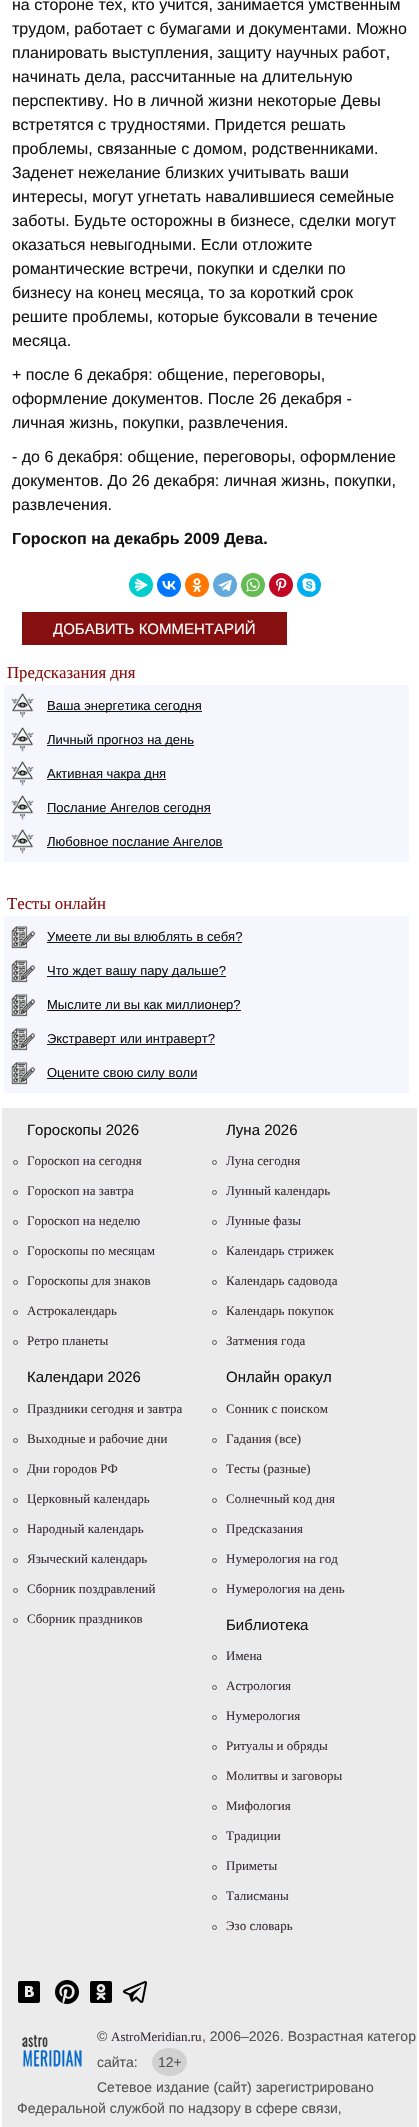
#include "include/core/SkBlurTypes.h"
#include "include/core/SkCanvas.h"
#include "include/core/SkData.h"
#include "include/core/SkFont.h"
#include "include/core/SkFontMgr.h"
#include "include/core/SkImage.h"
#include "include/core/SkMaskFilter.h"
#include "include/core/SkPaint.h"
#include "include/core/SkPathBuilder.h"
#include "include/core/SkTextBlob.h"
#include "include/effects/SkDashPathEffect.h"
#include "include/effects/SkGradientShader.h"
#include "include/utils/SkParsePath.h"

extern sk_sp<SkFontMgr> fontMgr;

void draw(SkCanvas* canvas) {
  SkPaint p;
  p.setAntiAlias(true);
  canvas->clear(SK_ColorWHITE);
  p.setColor(SkColorSetRGB(3, 206, 206));
  canvas->drawCircle(141, 585, 12, p);
  canvas->drawImageRect(SkImages::DeferredFromEncodedData(SkData::MakeFromFileName("images/1.png")), SkRect::MakeLTRB(134, 578, 148, 592), SkSamplingOptions());
  p.setColor(SkColorSetRGB(0, 119, 255));
  canvas->drawCircle(169, 585, 12, p);
  canvas->drawImageRect(SkImages::DeferredFromEncodedData(SkData::MakeFromFileName("images/2.png")), SkRect::MakeLTRB(162, 581, 176, 590), SkSamplingOptions());
  p.setColor(SkColorSetRGB(255, 119, 0));
  canvas->drawCircle(197, 585, 12, p);
  canvas->drawImageRect(SkImages::DeferredFromEncodedData(SkData::MakeFromFileName("images/3.png")), SkRect::MakeLTRB(192, 578, 202, 592), SkSamplingOptions());
  p.setColor(SkColorSetRGB(100, 169, 220));
  canvas->drawCircle(225, 585, 12, p);
  canvas->drawImageRect(SkImages::DeferredFromEncodedData(SkData::MakeFromFileName("images/4.png")), SkRect::MakeLTRB(218, 580, 232, 592), SkSamplingOptions());
  p.setColor(SkColorSetRGB(101, 188, 84));
  canvas->drawCircle(253, 585, 12, p);
  canvas->drawImageRect(SkImages::DeferredFromEncodedData(SkData::MakeFromFileName("images/5.png")), SkRect::MakeLTRB(246, 578, 260, 592), SkSamplingOptions());
  p.setColor(SkColorSetRGB(194, 7, 36));
  canvas->drawCircle(281, 585, 12, p);
  canvas->drawImageRect(SkImages::DeferredFromEncodedData(SkData::MakeFromFileName("images/6.png")), SkRect::MakeLTRB(276, 578, 287, 592), SkSamplingOptions());
  p.setColor(SkColorSetRGB(0, 175, 240));
  canvas->drawCircle(309, 585, 12, p);
  canvas->drawImageRect(SkImages::DeferredFromEncodedData(SkData::MakeFromFileName("images/7.png")), SkRect::MakeLTRB(302, 578, 316, 592), SkSamplingOptions());
  p.setColor(SkColorSetRGB(134, 15, 15));
  canvas->drawRect(SkRect::MakeLTRB(22, 612, 287, 645), p);
  p.setColor(SkColorSetRGB(245, 246, 255));
  canvas->drawRect(SkRect::MakeLTRB(4, 685, 409, 862), p);
  canvas->drawImageRect(SkImages::DeferredFromEncodedData(SkData::MakeFromFileName("images/8.png")), SkRect::MakeLTRB(11, 693, 34, 718), SkSamplingOptions());
  p.setColor(SkColorSetRGB(21, 21, 21));
  canvas->drawRect(SkRect::MakeLTRB(47, 711, 202, 712), p);
  canvas->drawImageRect(SkImages::DeferredFromEncodedData(SkData::MakeFromFileName("images/8.png")), SkRect::MakeLTRB(11, 727, 34, 752), SkSamplingOptions());
  canvas->drawRect(SkRect::MakeLTRB(47, 745, 194, 746), p);
  canvas->drawImageRect(SkImages::DeferredFromEncodedData(SkData::MakeFromFileName("images/8.png")), SkRect::MakeLTRB(11, 761, 34, 786), SkSamplingOptions());
  canvas->drawRect(SkRect::MakeLTRB(47, 779, 166, 780), p);
  canvas->drawImageRect(SkImages::DeferredFromEncodedData(SkData::MakeFromFileName("images/9.png")), SkRect::MakeLTRB(11, 795, 34, 820), SkSamplingOptions());
  canvas->drawRect(SkRect::MakeLTRB(47, 813, 211, 814), p);
  canvas->drawImageRect(SkImages::DeferredFromEncodedData(SkData::MakeFromFileName("images/8.png")), SkRect::MakeLTRB(11, 829, 34, 854), SkSamplingOptions());
  canvas->drawRect(SkRect::MakeLTRB(47, 847, 223, 848), p);
  p.setColor(SkColorSetRGB(245, 246, 255));
  canvas->drawRect(SkRect::MakeLTRB(4, 916, 409, 1093), p);
  canvas->drawImageRect(SkImages::DeferredFromEncodedData(SkData::MakeFromFileName("images/10.png")), SkRect::MakeLTRB(11, 926, 35, 949), SkSamplingOptions());
  p.setColor(SkColorSetRGB(21, 21, 21));
  canvas->drawRect(SkRect::MakeLTRB(47, 942, 242, 943), p);
  canvas->drawImageRect(SkImages::DeferredFromEncodedData(SkData::MakeFromFileName("images/10.png")), SkRect::MakeLTRB(11, 960, 35, 983), SkSamplingOptions());
  canvas->drawRect(SkRect::MakeLTRB(47, 976, 226, 977), p);
  canvas->drawImageRect(SkImages::DeferredFromEncodedData(SkData::MakeFromFileName("images/10.png")), SkRect::MakeLTRB(11, 994, 35, 1017), SkSamplingOptions());
  canvas->drawRect(SkRect::MakeLTRB(47, 1010, 241, 1011), p);
  canvas->drawImageRect(SkImages::DeferredFromEncodedData(SkData::MakeFromFileName("images/10.png")), SkRect::MakeLTRB(11, 1028, 35, 1051), SkSamplingOptions());
  canvas->drawRect(SkRect::MakeLTRB(47, 1044, 215, 1045), p);
  canvas->drawImageRect(SkImages::DeferredFromEncodedData(SkData::MakeFromFileName("images/10.png")), SkRect::MakeLTRB(11, 1062, 35, 1085), SkSamplingOptions());
  canvas->drawRect(SkRect::MakeLTRB(47, 1078, 197, 1079), p);
  p.setColor(SkColorSetRGB(235, 235, 235));
  canvas->drawRect(SkRect::MakeLTRB(2, 1108, 417, 2127), p);
  p.setStyle(SkPaint::kStroke_Style);
  p.setStrokeWidth(1);
  p.setColor(SkColorSetRGB(84, 84, 84));
  canvas->drawCircle(15.5f, 1162.5f, 2, p);
  canvas->drawCircle(15.5f, 1192.5f, 2, p);
  canvas->drawCircle(15.5f, 1222.5f, 2, p);
  canvas->drawCircle(15.5f, 1252.5f, 2, p);
  canvas->drawCircle(15.5f, 1282.5f, 2, p);
  canvas->drawCircle(15.5f, 1312.5f, 2, p);
  canvas->drawCircle(15.5f, 1342.5f, 2, p);
  canvas->drawCircle(214.5f, 1162.5f, 2, p);
  canvas->drawCircle(214.5f, 1192.5f, 2, p);
  canvas->drawCircle(214.5f, 1222.5f, 2, p);
  canvas->drawCircle(214.5f, 1252.5f, 2, p);
  canvas->drawCircle(214.5f, 1282.5f, 2, p);
  canvas->drawCircle(214.5f, 1312.5f, 2, p);
  canvas->drawCircle(214.5f, 1342.5f, 2, p);
  canvas->drawCircle(15.5f, 1410.5f, 2, p);
  canvas->drawCircle(15.5f, 1440.5f, 2, p);
  canvas->drawCircle(15.5f, 1470.5f, 2, p);
  canvas->drawCircle(15.5f, 1500.5f, 2, p);
  canvas->drawCircle(15.5f, 1530.5f, 2, p);
  canvas->drawCircle(15.5f, 1560.5f, 2, p);
  canvas->drawCircle(15.5f, 1590.5f, 2, p);
  canvas->drawCircle(15.5f, 1620.5f, 2, p);
  canvas->drawCircle(214.5f, 1410.5f, 2, p);
  canvas->drawCircle(214.5f, 1440.5f, 2, p);
  canvas->drawCircle(214.5f, 1470.5f, 2, p);
  canvas->drawCircle(214.5f, 1500.5f, 2, p);
  canvas->drawCircle(214.5f, 1530.5f, 2, p);
  canvas->drawCircle(214.5f, 1560.5f, 2, p);
  canvas->drawCircle(214.5f, 1590.5f, 2, p);
  canvas->drawCircle(214.5f, 1657.5f, 2, p);
  canvas->drawCircle(214.5f, 1687.5f, 2, p);
  canvas->drawCircle(214.5f, 1717.5f, 2, p);
  canvas->drawCircle(214.5f, 1747.5f, 2, p);
  canvas->drawCircle(214.5f, 1777.5f, 2, p);
  canvas->drawCircle(214.5f, 1807.5f, 2, p);
  canvas->drawCircle(214.5f, 1837.5f, 2, p);
  canvas->drawCircle(214.5f, 1867.5f, 2, p);
  canvas->drawCircle(214.5f, 1897.5f, 2, p);
  canvas->drawCircle(214.5f, 1927.5f, 2, p);
  canvas->drawImageRect(SkImages::DeferredFromEncodedData(SkData::MakeFromFileName("images/11.png")), SkRect::MakeLTRB(18, 1981, 40, 2003), SkSamplingOptions());
  canvas->drawImageRect(SkImages::DeferredFromEncodedData(SkData::MakeFromFileName("images/12.png")), SkRect::MakeLTRB(55, 1980, 79, 2004), SkSamplingOptions());
  canvas->drawImageRect(SkImages::DeferredFromEncodedData(SkData::MakeFromFileName("images/13.png")), SkRect::MakeLTRB(90, 1981, 112, 2003), SkSamplingOptions());
  canvas->drawImageRect(SkImages::DeferredFromEncodedData(SkData::MakeFromFileName("images/14.png")), SkRect::MakeLTRB(123, 1981, 147, 2003), SkSamplingOptions());
  canvas->drawImageRect(SkImages::DeferredFromEncodedData(SkData::MakeFromFileName("images/15.png")), SkRect::MakeLTRB(22, 2035, 82, 2075), SkSamplingOptions());
  p.setStyle(SkPaint::kFill_Style);
  p.setColor(SkColorSetRGB(209, 209, 209));
  canvas->drawOval(SkRect::MakeLTRB(152, 2048, 187, 2076), p);
  SkFont font1(fontMgr->matchFamilyStyle("Liberation Sans", SkFontStyle::Normal()), 16);
  font1.setSubpixel(true);
  p.setColor(SkColorSetRGB(21, 21, 21));
  canvas->drawString("на стороне тех, кто учится, занимается умственным", 12, 10, font1, p);
  canvas->drawString("трудом, работает с бумагами и документами. Можно", 12, 34, font1, p);
  canvas->drawString("планировать выступления, защиту научных работ,", 12, 58, font1, p);
  canvas->drawString("начинать дела, рассчитанные на длительную", 12, 82, font1, p);
  canvas->drawString("перспективу. Но в личной жизни некоторые Девы", 12, 106, font1, p);
  canvas->drawString("встретятся с трудностями. Придется решать", 12, 130, font1, p);
  canvas->drawString("проблемы, связанные с домом, родственниками.", 12, 154, font1, p);
  canvas->drawString("Заденет нежелание близких учитывать ваши", 12, 178, font1, p);
  canvas->drawString("интересы, могут угнетать навалившиеся семейные", 12, 202, font1, p);
  canvas->drawString("заботы. Будьте осторожны в бизнесе, сделки могут", 12, 226, font1, p);
  canvas->drawString("оказаться невыгодными. Если отложите", 12, 250, font1, p);
  canvas->drawString("романтические встречи, покупки и сделки по", 12, 274, font1, p);
  canvas->drawString("бизнесу на конец месяца, то за короткий срок", 12, 298, font1, p);
  canvas->drawString("решите проблемы, которые буксовали в течение", 12, 322, font1, p);
  canvas->drawString("месяца.", 12, 346, font1, p);
  canvas->drawString("+ после 6 декабря: общение, переговоры,", 12, 380, font1, p);
  canvas->drawString("оформление документов. После 26 декабря -", 12, 404, font1, p);
  canvas->drawString("личная жизнь, покупки, развлечения.", 12, 428, font1, p);
  canvas->drawString("- до 6 декабря: общение, переговоры, оформление", 12, 462, font1, p);
  canvas->drawString("документов. До 26 декабря: личная жизнь, покупки,", 12, 486, font1, p);
  canvas->drawString("развлечения.", 12, 510, font1, p);
  SkFont font2(fontMgr->matchFamilyStyle("Liberation Sans", SkFontStyle::Bold()), 16);
  font2.setSubpixel(true);
  canvas->drawString("Гороскоп на декабрь 2009 Дева.", 12, 544, font2, p);
  SkFont font3(fontMgr->matchFamilyStyle("Liberation Sans", SkFontStyle::Normal()), 15);
  font3.setSubpixel(true);
  p.setColor(SK_ColorWHITE);
  canvas->drawString("ДОБАВИТЬ КОММЕНТАРИЙ", 53, 634, font3, p);
  SkFont font4(fontMgr->matchFamilyStyle("Liberation Serif", SkFontStyle::Normal()), 16.75f);
  font4.setSubpixel(true);
  p.setColor(SkColorSetRGB(134, 15, 15));
  canvas->drawString("Предсказания дня", 7, 678, font4, p);
  SkFont font5(fontMgr->matchFamilyStyle("Liberation Sans", SkFontStyle::Normal()), 13);
  font5.setSubpixel(true);
  p.setColor(SkColorSetRGB(21, 21, 21));
  canvas->drawString("Ваша энергетика сегодня", 47, 710, font5, p);
  canvas->drawString("Личный прогноз на день", 47, 744, font5, p);
  canvas->drawString("Активная чакра дня", 47, 778, font5, p);
  canvas->drawString("Послание Ангелов сегодня", 47, 812, font5, p);
  canvas->drawString("Любовное послание Ангелов", 47, 846, font5, p);
  p.setColor(SkColorSetRGB(134, 15, 15));
  canvas->drawString("Тесты онлайн", 7, 909, font4, p);
  p.setColor(SkColorSetRGB(21, 21, 21));
  canvas->drawString("Умеете ли вы влюблять в себя?", 47, 941, font5, p);
  canvas->drawString("Что ждет вашу пару дальше?", 47, 975, font5, p);
  canvas->drawString("Мыслите ли вы как миллионер?", 47, 1009, font5, p);
  canvas->drawString("Экстраверт или интраверт?", 47, 1043, font5, p);
  canvas->drawString("Оцените свою силу воли", 47, 1077, font5, p);
  canvas->drawString("Гороскопы 2026", 27, 1135, font3, p);
  SkFont font6(fontMgr->matchFamilyStyle("Liberation Serif", SkFontStyle::Normal()), 13);
  font6.setSubpixel(true);
  p.setColor(SkColorSetRGB(60, 48, 57));
  canvas->drawString("Гороскоп на сегодня", 27, 1165, font6, p);
  canvas->drawString("Гороскоп на завтра", 27, 1195, font6, p);
  canvas->drawString("Гороскоп на неделю", 27, 1225, font6, p);
  canvas->drawString("Гороскопы по месяцам", 27, 1255, font6, p);
  canvas->drawString("Гороскопы для знаков", 27, 1285, font6, p);
  canvas->drawString("Астрокалендарь", 27, 1315, font6, p);
  canvas->drawString("Ретро планеты", 27, 1345, font6, p);
  p.setColor(SkColorSetRGB(21, 21, 21));
  canvas->drawString("Луна 2026", 226, 1135, font3, p);
  p.setColor(SkColorSetRGB(60, 48, 57));
  canvas->drawString("Луна сегодня", 226, 1165, font6, p);
  canvas->drawString("Лунный календарь", 226, 1195, font6, p);
  canvas->drawString("Лунные фазы", 226, 1225, font6, p);
  canvas->drawString("Календарь стрижек", 226, 1255, font6, p);
  canvas->drawString("Календарь садовода", 226, 1285, font6, p);
  canvas->drawString("Календарь покупок", 226, 1315, font6, p);
  canvas->drawString("Затмения года", 226, 1345, font6, p);
  p.setColor(SkColorSetRGB(21, 21, 21));
  canvas->drawString("Календари 2026", 27, 1382, font3, p);
  p.setColor(SkColorSetRGB(60, 48, 57));
  canvas->drawString("Праздники сегодня и завтра", 27, 1413, font6, p);
  canvas->drawString("Выходные и рабочие дни", 27, 1443, font6, p);
  canvas->drawString("Дни городов РФ", 27, 1473, font6, p);
  canvas->drawString("Церковный календарь", 27, 1503, font6, p);
  canvas->drawString("Народный календарь", 27, 1533, font6, p);
  canvas->drawString("Языческий календарь", 27, 1563, font6, p);
  canvas->drawString("Сборник поздравлений", 27, 1593, font6, p);
  canvas->drawString("Сборник праздников", 27, 1623, font6, p);
  p.setColor(SkColorSetRGB(21, 21, 21));
  canvas->drawString("Онлайн оракул", 226, 1382, font3, p);
  p.setColor(SkColorSetRGB(60, 48, 57));
  canvas->drawString("Cонник с поиском", 226, 1413, font6, p);
  canvas->drawString("Гадания (все)", 226, 1443, font6, p);
  canvas->drawString("Тесты (разные)", 226, 1473, font6, p);
  canvas->drawString("Солнечный код дня", 226, 1503, font6, p);
  canvas->drawString("Предсказания", 226, 1533, font6, p);
  canvas->drawString("Нумерология на год", 226, 1563, font6, p);
  canvas->drawString("Нумерология на день", 226, 1593, font6, p);
  p.setColor(SkColorSetRGB(21, 21, 21));
  canvas->drawString("Библиотека", 226, 1630, font3, p);
  p.setColor(SkColorSetRGB(60, 48, 57));
  canvas->drawString("Имена", 226, 1660, font6, p);
  canvas->drawString("Астрология", 226, 1690, font6, p);
  canvas->drawString("Нумерология", 226, 1720, font6, p);
  canvas->drawString("Ритуалы и обряды", 226, 1750, font6, p);
  canvas->drawString("Молитвы и заговоры", 226, 1780, font6, p);
  canvas->drawString("Мифология", 226, 1810, font6, p);
  canvas->drawString("Традиции", 226, 1840, font6, p);
  canvas->drawString("Приметы", 226, 1870, font6, p);
  canvas->drawString("Талисманы", 226, 1900, font6, p);
  canvas->drawString("Эзо словарь", 226, 1930, font6, p);
  SkFont font7(fontMgr->matchFamilyStyle("Liberation Sans", SkFontStyle::Normal()), 14);
  font7.setSubpixel(true);
  p.setColor(SkColorSetRGB(84, 84, 84));
  canvas->drawString("©", 97, 2041, font7, p);
  p.setColor(SkColorSetRGB(60, 48, 57));
  canvas->drawString("AstroMeridian.ru", 111, 2041, font6, p);
  p.setColor(SkColorSetRGB(84, 84, 84));
  canvas->drawString(", 2006–2026. Возрастная категор", 202, 2041, font7, p);
  canvas->drawString("сайта:", 97, 2067, font7, p);
  canvas->drawString("12+", 158, 2067, font7, p);
  canvas->drawString("Сетевое издание (сайт) зарегистрировано", 97, 2092, font7, p);
  canvas->drawString("Федеральной службой по надзору в сфере связи,", 17, 2113, font7, p);
}
